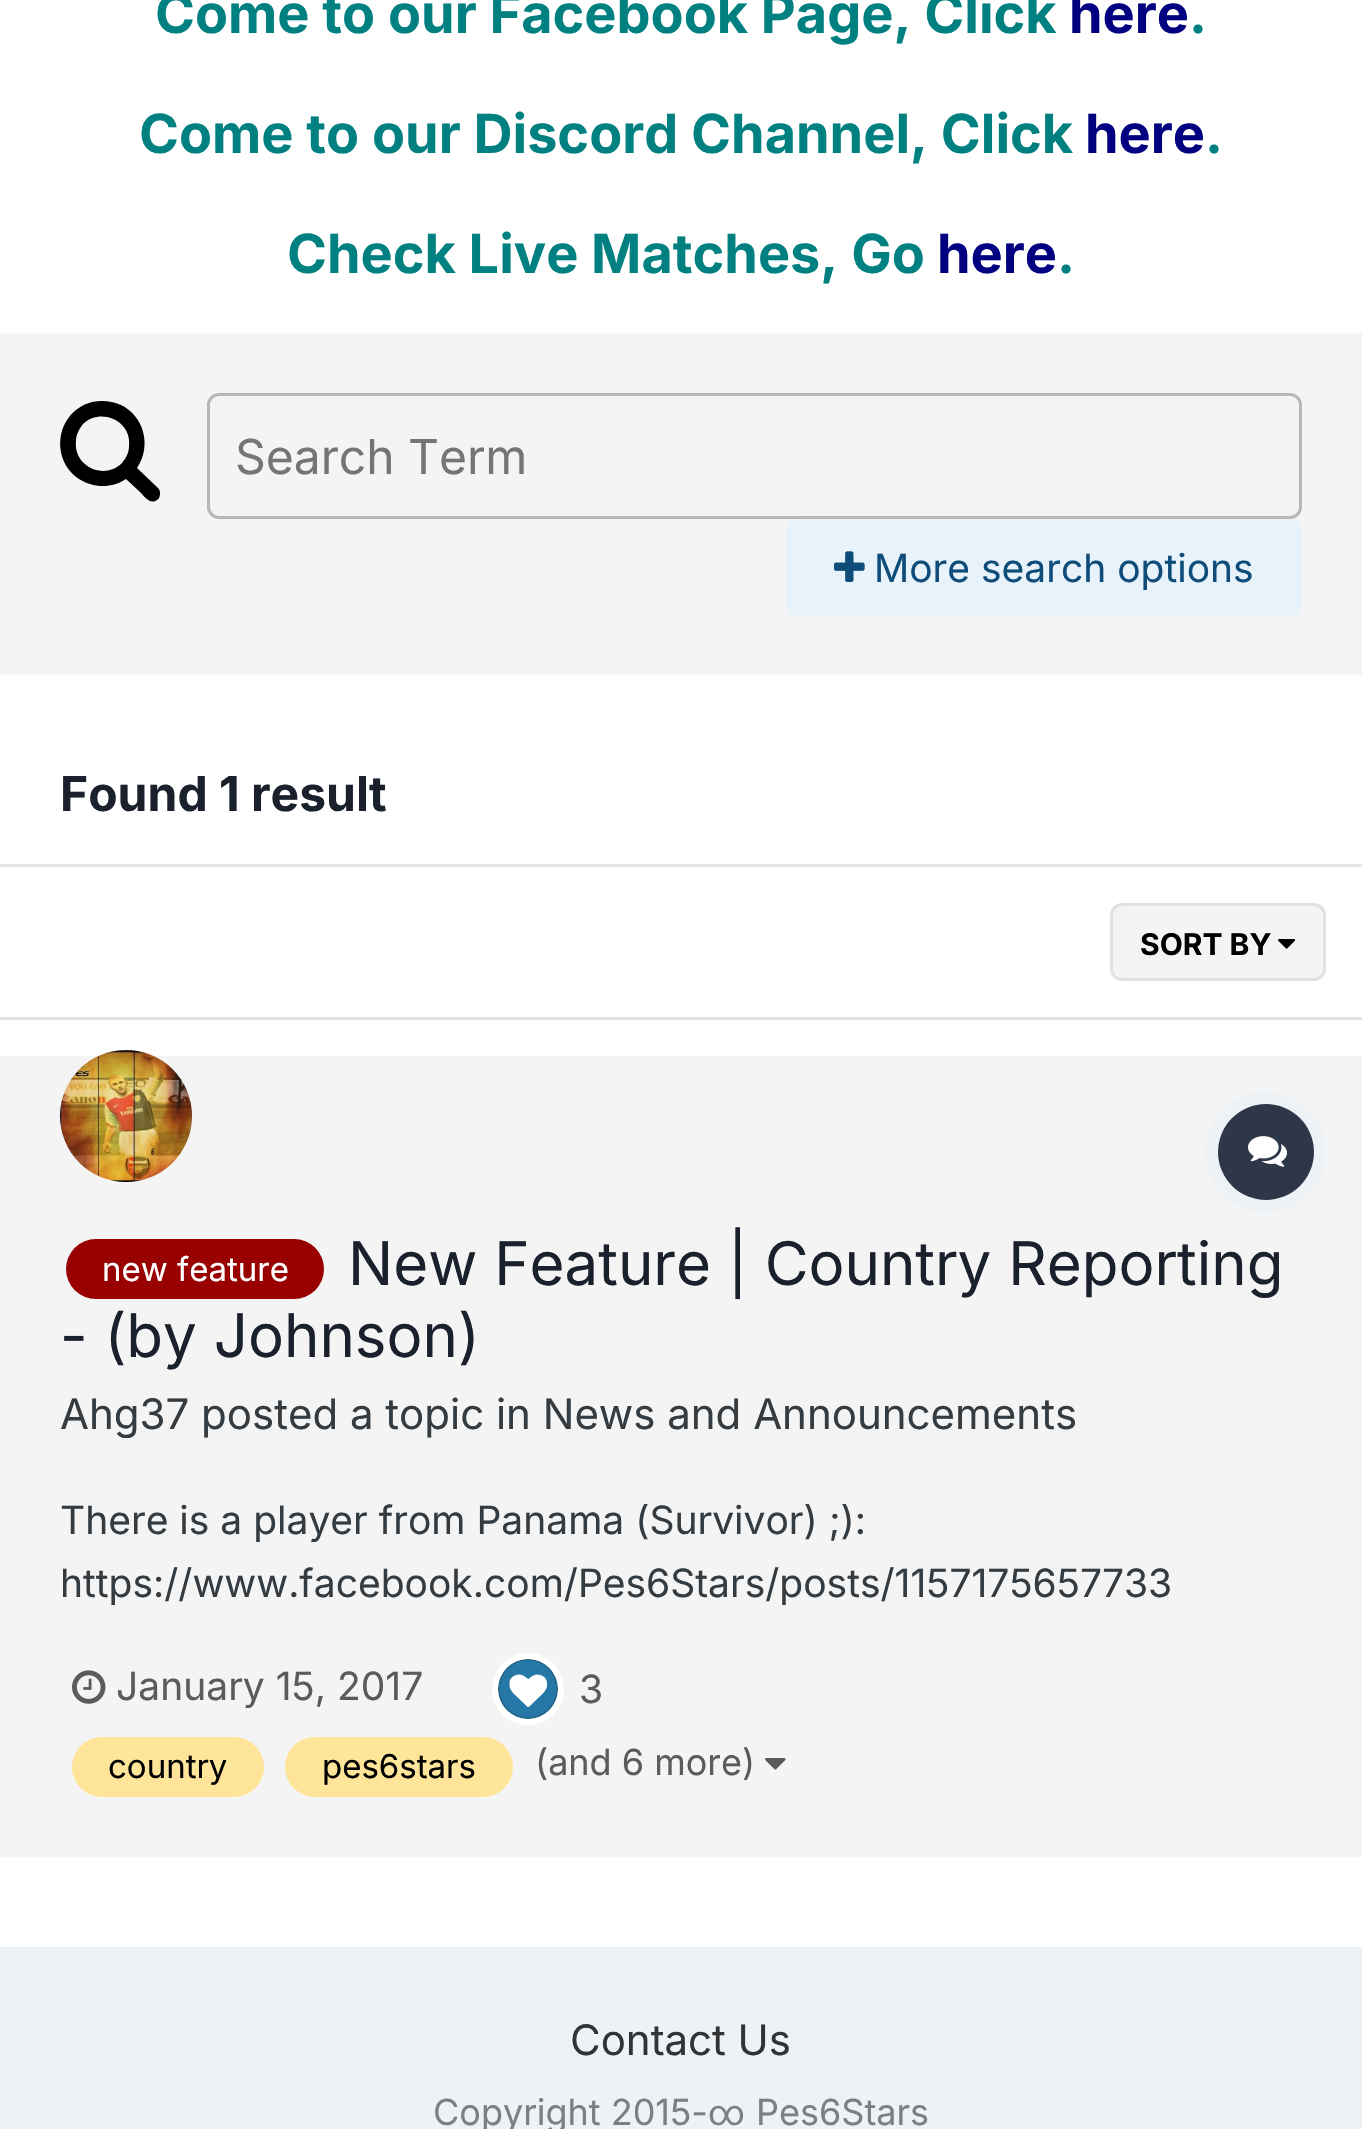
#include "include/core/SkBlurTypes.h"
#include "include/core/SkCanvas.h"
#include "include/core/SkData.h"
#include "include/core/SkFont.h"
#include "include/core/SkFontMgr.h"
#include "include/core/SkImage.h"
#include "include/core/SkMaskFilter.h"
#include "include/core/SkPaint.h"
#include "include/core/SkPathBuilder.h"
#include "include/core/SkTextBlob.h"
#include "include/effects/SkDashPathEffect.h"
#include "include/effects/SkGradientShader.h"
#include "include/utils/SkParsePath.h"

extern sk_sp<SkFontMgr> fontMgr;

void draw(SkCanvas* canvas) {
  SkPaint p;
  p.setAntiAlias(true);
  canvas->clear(SkColorSetRGB(237, 242, 247));
  p.setColor(SK_ColorWHITE);
  canvas->drawRect(SkRect::MakeLTRB(0, 0, 1362, 1947), p);
  p.setColor(SkColorSetRGB(244, 244, 244));
  canvas->drawRect(SkRect::MakeLTRB(0, 333, 1362, 675), p);
  p.setColor(SK_ColorBLACK);
  canvas->drawPath(SkPathBuilder().moveTo(122, 463).cubicTo(126, 458, 129, 453, 129, 446).cubicTo(132, 421, 101, 407, 83, 424).cubicTo(79, 429, 76, 435, 76, 441).cubicTo(73, 466, 104, 481, 122, 463).close().moveTo(160, 494).cubicTo(160, 496, 159, 499, 157, 500).cubicTo(150, 505, 144, 496, 140, 492).lineTo(126, 479).cubicTo(116, 486, 102, 488, 90, 484).cubicTo(49, 471, 51, 413, 92, 402).cubicTo(102, 400, 112, 401, 121, 405).cubicTo(144, 416, 152, 446, 137, 468).lineTo(158, 488).cubicTo(160, 490, 160, 492, 160, 494).close().detach(), p);
  p.setStyle(SkPaint::kStroke_Style);
  p.setStrokeWidth(3);
  p.setColor(SkColorSetRGB(183, 183, 183));
  canvas->drawRoundRect(SkRect::MakeLTRB(208.5f, 394.5f, 1300.5f, 517.5f), 10.5f, 10.5f, p);
  p.setStyle(SkPaint::kFill_Style);
  p.setColor(SkColorSetRGB(232, 242, 250));
  canvas->drawRoundRect(SkRect::MakeLTRB(786, 519, 1302, 615), 12, 12, p);
  canvas->drawImageRect(SkImages::DeferredFromEncodedData(SkData::MakeFromFileName("images/1.png")), SkRect::MakeLTRB(834, 551, 865, 582), SkSamplingOptions());
  p.setColor(SkColorSetRGB(230, 230, 230));
  canvas->drawRect(SkRect::MakeLTRB(0, 864, 1362, 867), p);
  p.setColor(SkColorSetRGB(225, 226, 227));
  canvas->drawRect(SkRect::MakeLTRB(0, 1017, 1362, 1020), p);
  p.setColor(SkColorSetRGB(244, 244, 244));
  canvas->drawRoundRect(SkRect::MakeLTRB(1110, 903, 1326, 981), 12, 12, p);
  canvas->drawImageRect(SkImages::DeferredFromEncodedData(SkData::MakeFromFileName("images/2.png")), SkRect::MakeLTRB(1278, 939, 1296, 949), SkSamplingOptions());
  p.setStyle(SkPaint::kStroke_Style);
  p.setColor(SkColorSetARGB(26, 53, 60, 65));
  canvas->drawRoundRect(SkRect::MakeLTRB(1111.5f, 904.5f, 1324.5f, 979.5f), 10.5f, 10.5f, p);
  p.setStyle(SkPaint::kFill_Style);
  p.setColor(SkColorSetRGB(244, 244, 244));
  canvas->drawRect(SkRect::MakeLTRB(0, 1056, 1362, 1857), p);
  canvas->drawCircle(126, 1116, 66, p);
  canvas->drawImageRect(SkImages::DeferredFromEncodedData(SkData::MakeFromFileName("images/3.png")), SkRect::MakeLTRB(60, 1050, 192, 1182), SkSamplingOptions());
  p.setStyle(SkPaint::kStroke_Style);
  p.setStrokeWidth(12);
  p.setColor(SkColorSetRGB(237, 242, 247));
  canvas->drawCircle(1266, 1152, 54, p);
  p.setStyle(SkPaint::kFill_Style);
  p.setColor(SkColorSetRGB(45, 55, 72));
  canvas->drawCircle(1266, 1152, 48, p);
  canvas->drawImageRect(SkImages::DeferredFromEncodedData(SkData::MakeFromFileName("images/4.png")), SkRect::MakeLTRB(1248, 1136, 1287, 1167), SkSamplingOptions());
  p.setColor(SkColorSetRGB(153, 0, 0));
  canvas->drawRoundRect(SkRect::MakeLTRB(66, 1239, 324, 1299), 30, 30, p);
  canvas->drawImageRect(SkImages::DeferredFromEncodedData(SkData::MakeFromFileName("images/5.png")), SkRect::MakeLTRB(72, 1670, 106, 1704), SkSamplingOptions());
  p.setStyle(SkPaint::kStroke_Style);
  p.setStrokeWidth(6);
  p.setColor(SK_ColorWHITE);
  canvas->drawCircle(528, 1689, 33, p);
  canvas->drawImageRect(SkImages::DeferredFromEncodedData(SkData::MakeFromFileName("images/6.png")), SkRect::MakeLTRB(498, 1659, 558, 1719), SkSamplingOptions());
  p.setStyle(SkPaint::kFill_Style);
  p.setColor(SkColorSetRGB(255, 229, 153));
  canvas->drawRoundRect(SkRect::MakeLTRB(72, 1737, 264, 1797), 30, 30, p);
  canvas->drawRoundRect(SkRect::MakeLTRB(285, 1737, 513, 1797), 30, 30, p);
  canvas->drawImageRect(SkImages::DeferredFromEncodedData(SkData::MakeFromFileName("images/7.png")), SkRect::MakeLTRB(765, 1758, 786, 1770), SkSamplingOptions());
  SkFont font1(fontMgr->matchFamilyStyle("Inter", SkFontStyle::Bold()), 54);
  font1.setSubpixel(true);
  p.setColor(SkColorSetRGB(0, 128, 128));
  canvas->drawString("Come to our Facebook Page, Click", 155, 33, font1, p);
  p.setColor(SkColorSetRGB(0, 0, 128));
  canvas->drawString("here", 1069, 33, font1, p);
  p.setColor(SkColorSetRGB(0, 128, 128));
  canvas->drawString(".", 1189, 33, font1, p);
  canvas->drawString("Come to our Discord Channel, Click", 139, 153, font1, p);
  p.setColor(SkColorSetRGB(0, 0, 128));
  canvas->drawString("here", 1085, 153, font1, p);
  p.setColor(SkColorSetRGB(0, 128, 128));
  canvas->drawString(".", 1205, 153, font1, p);
  canvas->drawString("Check Live Matches, Go", 287, 273, font1, p);
  p.setColor(SkColorSetRGB(0, 0, 128));
  canvas->drawString("here", 937, 273, font1, p);
  p.setColor(SkColorSetRGB(0, 128, 128));
  canvas->drawString(".", 1057, 273, font1, p);
  SkFont font2(fontMgr->matchFamilyStyle("Inter", SkFontStyle::Normal()), 48);
  font2.setSubpixel(true);
  p.setColor(SkColorSetRGB(117, 117, 117));
  canvas->drawString("Search Term", 235, 474, font2, p);
  SkFont font3(fontMgr->matchFamilyStyle("Inter", SkFontStyle::Normal()), 39);
  font3.setSubpixel(true);
  p.setColor(SkColorSetRGB(14, 76, 121));
  canvas->drawString("More search options", 874, 582, font3, p);
  SkFont font4(fontMgr->matchFamilyStyle("Inter", SkFontStyle::Bold()), 48);
  font4.setSubpixel(true);
  p.setColor(SkColorSetRGB(26, 32, 44));
  canvas->drawString("Found 1 result", 60, 811, font4, p);
  SkFont font5(fontMgr->matchFamilyStyle("Inter", SkFontStyle::Bold()), 30);
  font5.setSubpixel(true);
  p.setColor(SK_ColorBLACK);
  canvas->drawString("SORT BY", 1140, 955, font5, p);
  SkFont font6(fontMgr->matchFamilyStyle("Inter", SkFontStyle::Normal()), 33);
  font6.setSubpixel(true);
  p.setColor(SK_ColorWHITE);
  canvas->drawString("new feature", 102, 1281, font6, p);
  SkFont font7(fontMgr->matchFamilyStyle("Inter", SkFontStyle::Normal()), 60);
  font7.setSubpixel(true);
  p.setColor(SkColorSetRGB(26, 32, 44));
  canvas->drawString("New Feature | Country Reporting", 348, 1285, font7, p);
  canvas->drawString("- (by Johnson)", 60, 1357, font7, p);
  SkFont font8(fontMgr->matchFamilyStyle("Inter", SkFontStyle::Normal()), 42);
  font8.setSubpixel(true);
  p.setColor(SkColorSetRGB(53, 60, 65));
  canvas->drawString("Ahg37 posted a topic in News and Announcements", 60, 1429, font8, p);
  canvas->drawString("There is a player from Panama (Survivor) ;):", 60, 1534, font3, p);
  canvas->drawString("https://www.facebook.com/Pes6Stars/posts/1157175657733", 60, 1597, font3, p);
  p.setColor(SkColorSetRGB(91, 91, 91));
  canvas->drawString("January 15, 2017", 116, 1700, font3, p);
  canvas->drawString("3", 579, 1703, font3, p);
  p.setColor(SK_ColorBLACK);
  canvas->drawString("country", 108, 1778, font6, p);
  canvas->drawString("pes6stars", 322, 1778, font6, p);
  SkFont font9(fontMgr->matchFamilyStyle("Inter", SkFontStyle::Normal()), 36);
  font9.setSubpixel(true);
  p.setColor(SkColorSetRGB(91, 91, 91));
  canvas->drawString("(and 6 more)", 535, 1775, font9, p);
  p.setColor(SkColorSetRGB(51, 51, 51));
  canvas->drawString("Contact Us", 570, 2055, font8, p);
  p.setColor(SkColorSetRGB(125, 127, 129));
  canvas->drawString("Copyright 2015-", 433, 2125, font9, p);
  SkFont font10(fontMgr->matchFamilyStyle("Roboto", SkFontStyle::Normal()), 36);
  font10.setSubpixel(true);
  canvas->drawString("∞", 708, 2125, font10, p);
  canvas->drawString("Pes6Stars", 756, 2125, font9, p);
}
